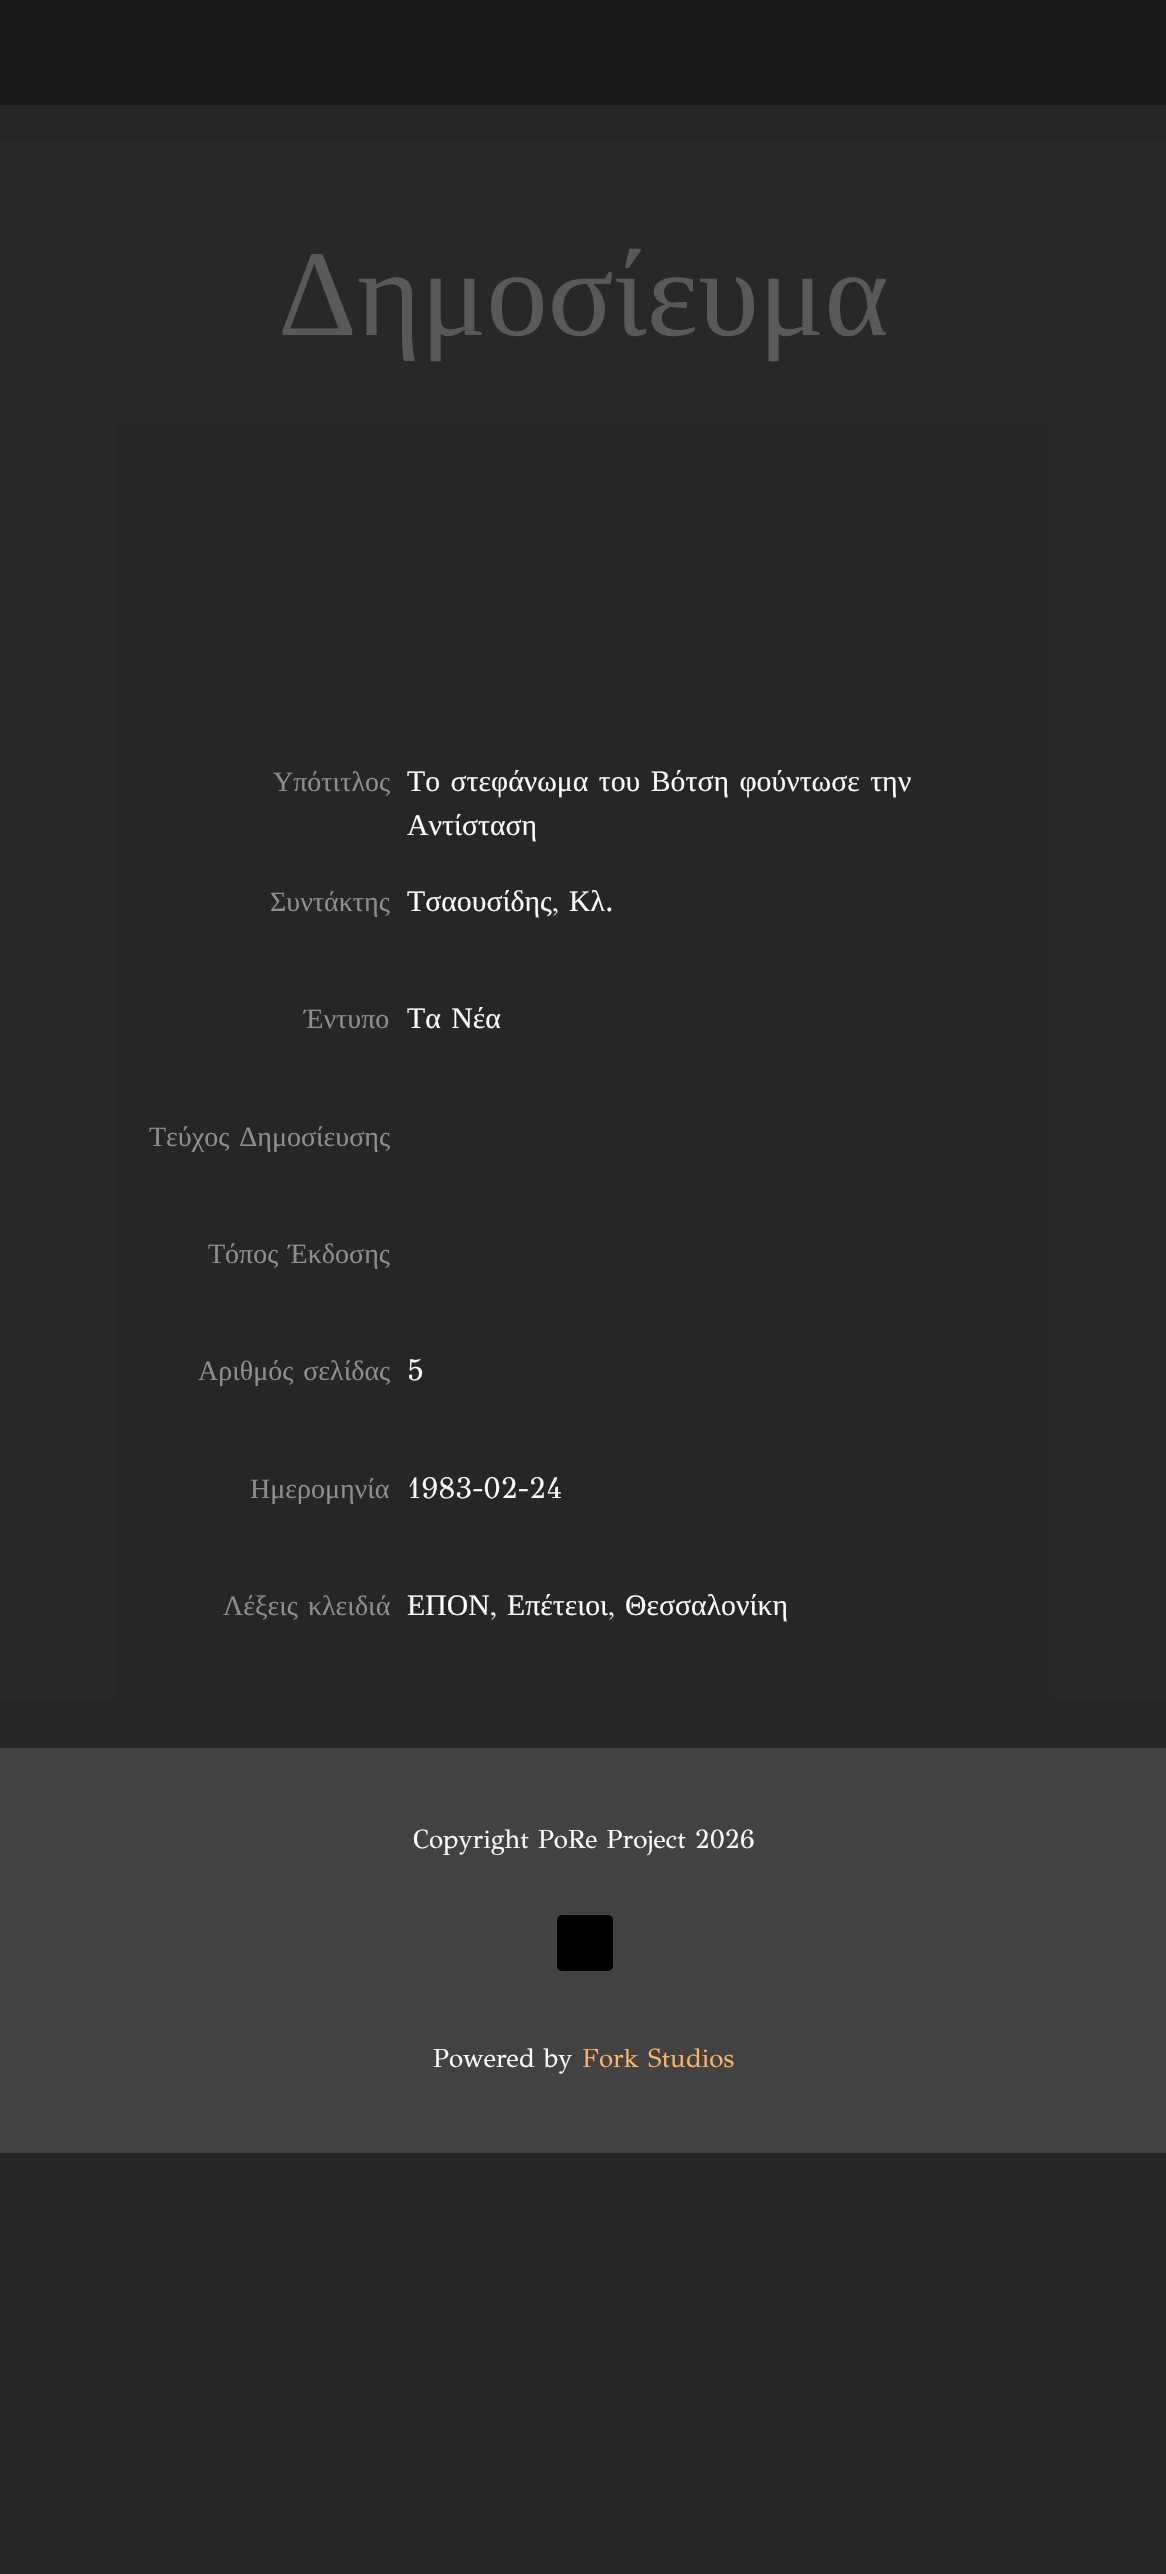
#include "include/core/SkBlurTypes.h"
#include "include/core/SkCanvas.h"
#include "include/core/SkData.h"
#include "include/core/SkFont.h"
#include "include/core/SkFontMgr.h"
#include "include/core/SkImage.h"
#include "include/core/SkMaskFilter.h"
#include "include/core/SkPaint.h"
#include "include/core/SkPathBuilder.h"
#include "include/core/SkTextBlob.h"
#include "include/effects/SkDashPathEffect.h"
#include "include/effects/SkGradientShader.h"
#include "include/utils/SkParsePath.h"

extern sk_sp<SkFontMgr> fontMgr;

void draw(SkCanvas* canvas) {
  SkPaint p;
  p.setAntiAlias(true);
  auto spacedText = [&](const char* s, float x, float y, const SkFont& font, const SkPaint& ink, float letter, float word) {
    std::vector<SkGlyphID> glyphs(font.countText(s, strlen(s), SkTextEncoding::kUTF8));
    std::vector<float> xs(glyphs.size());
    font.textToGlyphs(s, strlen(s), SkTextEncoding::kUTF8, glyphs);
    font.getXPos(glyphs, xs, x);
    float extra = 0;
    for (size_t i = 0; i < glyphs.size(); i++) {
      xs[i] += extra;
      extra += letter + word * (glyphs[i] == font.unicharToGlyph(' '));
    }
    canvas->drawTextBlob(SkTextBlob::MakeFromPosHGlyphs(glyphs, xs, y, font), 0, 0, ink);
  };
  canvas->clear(SkColorSetRGB(40, 38, 36));
  p.setColor(SkColorSetRGB(26, 25, 24));
  canvas->drawRect(SkRect::MakeLTRB(0, 0, 1166, 105), p);
  p.setColor(SkColorSetRGB(40, 40, 39));
  canvas->drawRect(SkRect::MakeLTRB(0, 140, 1166, 1701), p);
  p.setColor(SkColorSetRGB(40, 38, 36));
  canvas->drawRect(SkRect::MakeLTRB(117, 425, 1050, 1701), p);
  p.setColor(SkColorSetRGB(66, 66, 66));
  canvas->drawRect(SkRect::MakeLTRB(0, 1748, 1166, 2153), p);
  p.setColor(SK_ColorBLACK);
  canvas->drawRoundRect(SkRect::MakeLTRB(557, 1915, 613, 1971), 5, 5, p);
  SkFont font1(fontMgr->matchFamilyStyle("Liberation Serif", SkFontStyle::Normal()), 122.5f);
  font1.setSubpixel(true);
  p.setColor(SkColorSetRGB(89, 89, 89));
  canvas->drawString("Δημοσίευμα", 278, 335, font1, p);
  SkFont font2(fontMgr->matchFamilyStyle("Liberation Serif", SkFontStyle::Normal()), 28);
  font2.setSubpixel(true);
  p.setColor(SkColorSetRGB(142, 142, 142));
  canvas->drawString("Υπότιτλος", 273, 791, font2, p);
  SkFont font3(fontMgr->matchFamilyStyle("Liberation Serif", SkFontStyle::Normal()), 29.75f);
  font3.setSubpixel(true);
  p.setColor(SkColorSetRGB(252, 252, 252));
  spacedText("Το στεφάνωμα του Βότση φούντωσε την", 407, 791, font3, p, 0, 3);
  canvas->drawString("Αντίσταση", 407, 835, font3, p);
  p.setColor(SkColorSetRGB(142, 142, 142));
  canvas->drawString("Συντάκτης", 270, 911, font2, p);
  p.setColor(SkColorSetRGB(252, 252, 252));
  canvas->drawString("Τσαουσίδης", 407, 911, font3, p);
  SkFont font4(fontMgr->matchFamilyStyle("GFS Didot", SkFontStyle::Normal()), 29.75f);
  font4.setSubpixel(true);
  canvas->drawString(",", 552, 911, font4, p);
  canvas->drawString("Κλ", 569, 911, font3, p);
  canvas->drawString(".", 605, 911, font4, p);
  p.setColor(SkColorSetRGB(142, 142, 142));
  canvas->drawString("Έντυπο", 304, 1028, font2, p);
  p.setColor(SkColorSetRGB(252, 252, 252));
  spacedText("Τα Νέα", 407, 1028, font3, p, 0, 3);
  p.setColor(SkColorSetRGB(142, 142, 142));
  spacedText("Τεύχος Δημοσίευσης", 149, 1146, font2, p, 0, 3);
  spacedText("Τόπος Έκδοσης", 208, 1263, font2, p, 0, 3);
  spacedText("Αριθμός σελίδας", 198, 1380, font2, p, 0, 3);
  p.setColor(SkColorSetRGB(252, 252, 252));
  canvas->drawString("5", 407, 1380, font4, p);
  p.setColor(SkColorSetRGB(142, 142, 142));
  canvas->drawString("Ημερομηνία", 250, 1498, font2, p);
  p.setColor(SkColorSetRGB(252, 252, 252));
  canvas->drawString("1983-02-24", 407, 1498, font4, p);
  p.setColor(SkColorSetRGB(142, 142, 142));
  spacedText("Λέξεις κλειδιά", 223, 1615, font2, p, 0, 3);
  p.setColor(SkColorSetRGB(252, 252, 252));
  canvas->drawString("ΕΠΟΝ", 407, 1615, font3, p);
  canvas->drawString(",", 490, 1615, font4, p);
  canvas->drawString("Επέτειοι", 507, 1615, font3, p);
  canvas->drawString(",", 608, 1615, font4, p);
  canvas->drawString("Θεσσαλονίκη", 625, 1615, font3, p);
  SkFont font5(fontMgr->matchFamilyStyle("GFS Didot", SkFontStyle::Normal()), 26.25f);
  font5.setSubpixel(true);
  canvas->drawString("Copyright PoRe Project 2026", 413, 1848, font5, p);
  canvas->drawString("Powered by", 433, 2067, font5, p);
  p.setColor(SkColorSetRGB(253, 180, 103));
  canvas->drawString("Fork Studios", 582, 2067, font5, p);
}
